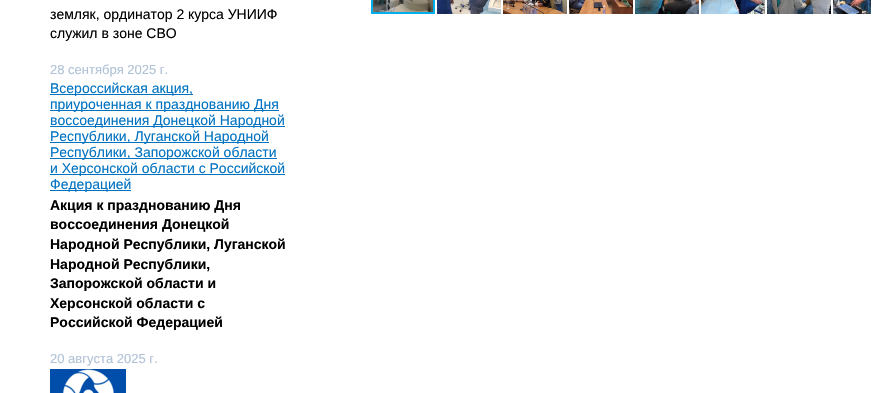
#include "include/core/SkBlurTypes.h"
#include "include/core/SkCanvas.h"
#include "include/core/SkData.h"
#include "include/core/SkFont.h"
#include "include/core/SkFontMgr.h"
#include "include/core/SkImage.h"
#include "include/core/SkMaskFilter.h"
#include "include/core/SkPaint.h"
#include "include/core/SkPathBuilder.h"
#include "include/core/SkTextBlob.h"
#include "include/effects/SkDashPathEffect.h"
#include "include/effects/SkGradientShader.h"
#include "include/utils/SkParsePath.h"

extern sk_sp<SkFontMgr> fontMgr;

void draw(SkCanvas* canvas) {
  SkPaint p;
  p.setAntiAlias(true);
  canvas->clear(SK_ColorWHITE);
  canvas->drawImageRect(SkImages::DeferredFromEncodedData(SkData::MakeFromFileName("images/1.png")), SkRect::MakeLTRB(373, 0, 433, 12), SkSamplingOptions());
  p.setStyle(SkPaint::kStroke_Style);
  p.setStrokeWidth(2);
  p.setColor(SkColorSetRGB(0, 175, 234));
  canvas->drawRect(SkRect::MakeLTRB(372, -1, 434, 13), p);
  canvas->drawImageRect(SkImages::DeferredFromEncodedData(SkData::MakeFromFileName("images/2.png")), SkRect::MakeLTRB(437, 0, 501, 14), SkSamplingOptions());
  canvas->drawImageRect(SkImages::DeferredFromEncodedData(SkData::MakeFromFileName("images/3.png")), SkRect::MakeLTRB(503, 0, 567, 14), SkSamplingOptions());
  canvas->drawImageRect(SkImages::DeferredFromEncodedData(SkData::MakeFromFileName("images/4.png")), SkRect::MakeLTRB(569, 0, 633, 14), SkSamplingOptions());
  canvas->drawImageRect(SkImages::DeferredFromEncodedData(SkData::MakeFromFileName("images/5.png")), SkRect::MakeLTRB(635, 0, 699, 14), SkSamplingOptions());
  canvas->drawImageRect(SkImages::DeferredFromEncodedData(SkData::MakeFromFileName("images/6.png")), SkRect::MakeLTRB(701, 0, 765, 14), SkSamplingOptions());
  canvas->drawImageRect(SkImages::DeferredFromEncodedData(SkData::MakeFromFileName("images/7.png")), SkRect::MakeLTRB(767, 0, 831, 14), SkSamplingOptions());
  canvas->drawImageRect(SkImages::DeferredFromEncodedData(SkData::MakeFromFileName("images/8.png")), SkRect::MakeLTRB(833, 0, 871, 14), SkSamplingOptions());
  p.setStyle(SkPaint::kFill_Style);
  {
    const SkColor colors[] = {SkColorSetARGB(102, 0, 0, 0), SkColorSetARGB(0, 0, 0, 0)};
    const float stops[] = {0, 1};
    SkMatrix m = SkMatrix::Translate(871, -18).preScale(5, 34);
    p.setShader(SkGradientShader::MakeRadial({0, 0}, 1, colors, stops, 2, SkTileMode::kClamp, 0, &m));
    p.setAlpha(255);
  }
  canvas->drawRect(SkRect::MakeLTRB(867, 0, 871, 16), p);
  {
    const SkColor colors[] = {SkColorSetARGB(0, 0, 0, 0), SkColorSetARGB(51, 0, 0, 0), SkColorSetARGB(77, 0, 0, 0), SkColorSetARGB(0, 0, 0, 0)};
    const float stops[] = {0, 0.25f, 0.75f, 1};
    const SkPoint ends[] = {{871, -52}, {871, 16}};
    p.setShader(SkGradientShader::MakeLinear(ends, colors, stops, 4, SkTileMode::kClamp));
    p.setAlpha(255);
  }
  canvas->drawRect(SkRect::MakeLTRB(870, 0, 871, 16), p);
  p.setShader(nullptr);
  p.setColor(SkColorSetRGB(0, 114, 193));
  canvas->drawRect(SkRect::MakeLTRB(50, 94, 193, 95), p);
  canvas->drawRect(SkRect::MakeLTRB(50, 110, 279, 111), p);
  canvas->drawRect(SkRect::MakeLTRB(50, 126, 285, 127), p);
  canvas->drawRect(SkRect::MakeLTRB(50, 142, 269, 143), p);
  canvas->drawRect(SkRect::MakeLTRB(50, 158, 277, 159), p);
  canvas->drawRect(SkRect::MakeLTRB(50, 174, 285, 175), p);
  canvas->drawRect(SkRect::MakeLTRB(50, 190, 131, 191), p);
  canvas->drawImageRect(SkImages::DeferredFromEncodedData(SkData::MakeFromFileName("images/9.png")), SkRect::MakeLTRB(50, 369, 126, 393), SkSamplingOptions());
  SkFont font1(fontMgr->matchFamilyStyle("Liberation Sans", SkFontStyle::Normal()), 14);
  font1.setSubpixel(true);
  p.setColor(SK_ColorBLACK);
  canvas->drawString("земляк, ординатор 2 курса УНИИФ", 50, 19, font1, p);
  canvas->drawString("служил в зоне СВО", 50, 38, font1, p);
  SkFont font2(fontMgr->matchFamilyStyle("Liberation Sans", SkFontStyle::Normal()), 13);
  font2.setSubpixel(true);
  p.setColor(SkColorSetRGB(176, 194, 214));
  canvas->drawString("28 сентября 2025 г.", 50, 74, font2, p);
  p.setColor(SkColorSetRGB(0, 114, 193));
  canvas->drawString("Всероссийская акция,", 50, 93, font1, p);
  canvas->drawString("приуроченная к празднованию Дня", 50, 109, font1, p);
  canvas->drawString("воссоединения Донецкой Народной", 50, 125, font1, p);
  canvas->drawString("Республики, Луганской Народной", 50, 141, font1, p);
  canvas->drawString("Республики, Запорожской области", 50, 157, font1, p);
  canvas->drawString("и Херсонской области с Российской", 50, 173, font1, p);
  canvas->drawString("Федерацией", 50, 189, font1, p);
  SkFont font3(fontMgr->matchFamilyStyle("Liberation Sans", SkFontStyle::Bold()), 14);
  font3.setSubpixel(true);
  p.setColor(SK_ColorBLACK);
  canvas->drawString("Акция к празднованию Дня", 50, 210, font3, p);
  canvas->drawString("воссоединения Донецкой", 50, 229, font3, p);
  canvas->drawString("Народной Республики, Луганской", 50, 249, font3, p);
  canvas->drawString("Народной Республики,", 50, 269, font3, p);
  canvas->drawString("Запорожской области и", 50, 288, font3, p);
  canvas->drawString("Херсонской области с", 50, 308, font3, p);
  canvas->drawString("Российской Федерацией", 50, 327, font3, p);
  p.setColor(SkColorSetRGB(176, 194, 214));
  canvas->drawString("20 августа 2025 г.", 50, 363, font2, p);
}
